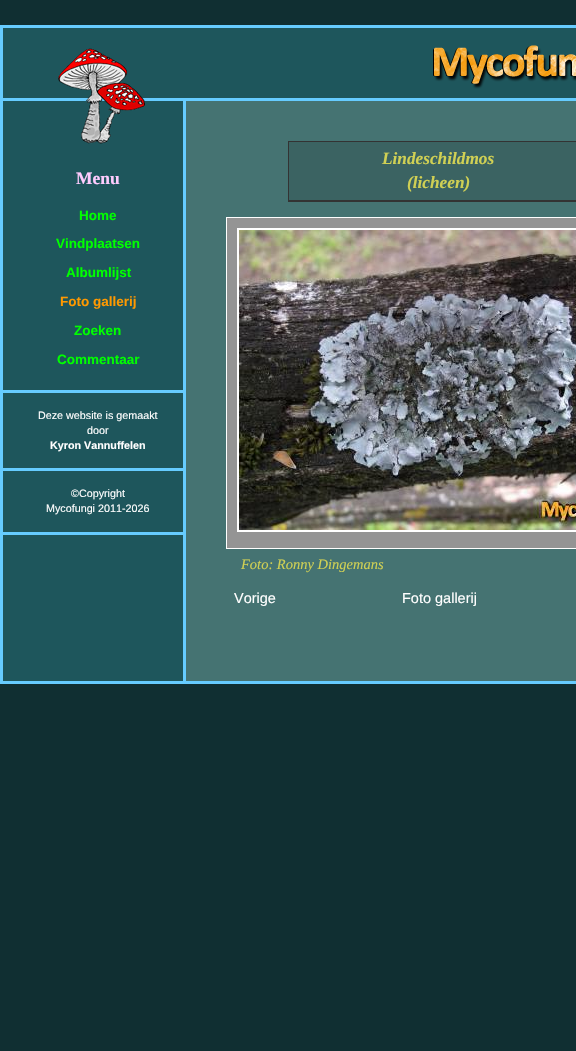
#include "include/core/SkBlurTypes.h"
#include "include/core/SkCanvas.h"
#include "include/core/SkData.h"
#include "include/core/SkFont.h"
#include "include/core/SkFontMgr.h"
#include "include/core/SkImage.h"
#include "include/core/SkMaskFilter.h"
#include "include/core/SkPaint.h"
#include "include/core/SkPathBuilder.h"
#include "include/core/SkTextBlob.h"
#include "include/effects/SkDashPathEffect.h"
#include "include/effects/SkGradientShader.h"
#include "include/utils/SkParsePath.h"

extern sk_sp<SkFontMgr> fontMgr;

void draw(SkCanvas* canvas) {
  SkPaint p;
  p.setAntiAlias(true);
  canvas->clear(SkColorSetRGB(16, 47, 50));
  p.setColor(SkColorSetRGB(30, 86, 92));
  canvas->drawRect(SkRect::MakeLTRB(1.5f, 26.5f, 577.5f, 682.5f), p);
  p.setStyle(SkPaint::kStroke_Style);
  p.setStrokeWidth(3);
  p.setColor(SkColorSetRGB(102, 204, 255));
  canvas->drawRect(SkRect::MakeLTRB(1.5f, 26.5f, 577.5f, 682.5f), p);
  p.setStyle(SkPaint::kFill_Style);
  canvas->drawRect(SkRect::MakeLTRB(3, 98, 576, 101), p);
  canvas->drawImageRect(SkImages::DeferredFromEncodedData(SkData::MakeFromFileName("images/1.png")), SkRect::MakeLTRB(58, 48, 145, 144), SkSamplingOptions());
  canvas->drawImageRect(SkImages::DeferredFromEncodedData(SkData::MakeFromFileName("images/2.png")), SkRect::MakeLTRB(433, 45, 576, 89), SkSamplingOptions());
  canvas->drawRect(SkRect::MakeLTRB(3, 390, 183, 393), p);
  canvas->drawRect(SkRect::MakeLTRB(3, 468, 183, 471), p);
  canvas->drawRect(SkRect::MakeLTRB(3, 532, 183, 535), p);
  p.setColor(SkColorSetRGB(69, 115, 114));
  canvas->drawRect(SkRect::MakeLTRB(186, 101, 576, 681), p);
  p.setColor(SkColorSetRGB(102, 204, 255));
  canvas->drawRect(SkRect::MakeLTRB(183, 101, 186, 681), p);
  p.setColor(SkColorSetRGB(59, 99, 98));
  canvas->drawRect(SkRect::MakeLTRB(289, 142, 576, 200), p);
  p.setColor(SkColorSetRGB(51, 51, 51));
  canvas->drawRect(SkRect::MakeLTRB(288, 141, 576, 142), p);
  canvas->drawRect(SkRect::MakeLTRB(288, 200, 576, 202), p);
  canvas->drawRect(SkRect::MakeLTRB(288, 141, 289, 202), p);
  p.setColor(SkColorSetRGB(148, 148, 148));
  canvas->drawRect(SkRect::MakeLTRB(226.5f, 217.5f, 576.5f, 548.5f), p);
  p.setStyle(SkPaint::kStroke_Style);
  p.setStrokeWidth(1);
  p.setColor(SK_ColorWHITE);
  canvas->drawRect(SkRect::MakeLTRB(226.5f, 217.5f, 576.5f, 548.5f), p);
  p.setStrokeWidth(2);
  canvas->drawRect(SkRect::MakeLTRB(238, 229, 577, 531), p);
  canvas->drawImageRect(SkImages::DeferredFromEncodedData(SkData::MakeFromFileName("images/3.png")), SkRect::MakeLTRB(239, 230, 576, 530), SkSamplingOptions());
  SkFont font1(fontMgr->matchFamilyStyle("Liberation Serif", SkFontStyle::Bold()), 17.5f);
  font1.setSubpixel(true);
  p.setStyle(SkPaint::kFill_Style);
  p.setColor(SkColorSetRGB(255, 204, 255));
  canvas->drawString("Menu", 76, 184, font1, p);
  SkFont font2(fontMgr->matchFamilyStyle("Liberation Sans", SkFontStyle::Bold()), 13.5f);
  font2.setSubpixel(true);
  p.setColor(SkColorSetRGB(0, 255, 0));
  canvas->drawString("Home", 79, 220, font2, p);
  canvas->drawString("Vindplaatsen", 56, 248, font2, p);
  canvas->drawString("Albumlijst", 66, 277, font2, p);
  p.setColor(SkColorSetRGB(255, 153, 0));
  canvas->drawString("Foto gallerij", 60, 306, font2, p);
  p.setColor(SkColorSetRGB(0, 255, 0));
  canvas->drawString("Zoeken", 74, 335, font2, p);
  canvas->drawString("Commentaar", 57, 364, font2, p);
  SkFont font3(fontMgr->matchFamilyStyle("Liberation Sans", SkFontStyle::Normal()), 10.75f);
  font3.setSubpixel(true);
  p.setColor(SK_ColorWHITE);
  canvas->drawString("Deze website is gemaakt", 38, 419, font3, p);
  canvas->drawString("door", 87, 434, font3, p);
  SkFont font4(fontMgr->matchFamilyStyle("Liberation Sans", SkFontStyle::Bold()), 10.75f);
  font4.setSubpixel(true);
  canvas->drawString("Kyron Vannuffelen", 50, 449, font4, p);
  canvas->drawString("©Copyright", 71, 497, font3, p);
  canvas->drawString("Mycofungi 2011-2026", 46, 512, font3, p);
  SkFont font5(fontMgr->matchFamilyStyle("Liberation Serif", SkFontStyle::BoldItalic()), 17.25f);
  font5.setSubpixel(true);
  p.setColor(SkColorSetRGB(208, 208, 84));
  canvas->drawString("Lindeschildmos", 382, 164, font5, p);
  canvas->drawString("(licheen)", 407, 188, font5, p);
  SkFont font6(fontMgr->matchFamilyStyle("Liberation Serif", SkFontStyle::Italic()), 14.5f);
  font6.setSubpixel(true);
  canvas->drawString("Foto: Ronny Dingemans", 241, 569, font6, p);
  SkFont font7(fontMgr->matchFamilyStyle("Liberation Sans", SkFontStyle::Normal()), 14.5f);
  font7.setSubpixel(true);
  p.setColor(SK_ColorWHITE);
  canvas->drawString("Vorige", 234, 603, font7, p);
  canvas->drawString("Foto gallerij", 402, 603, font7, p);
}
